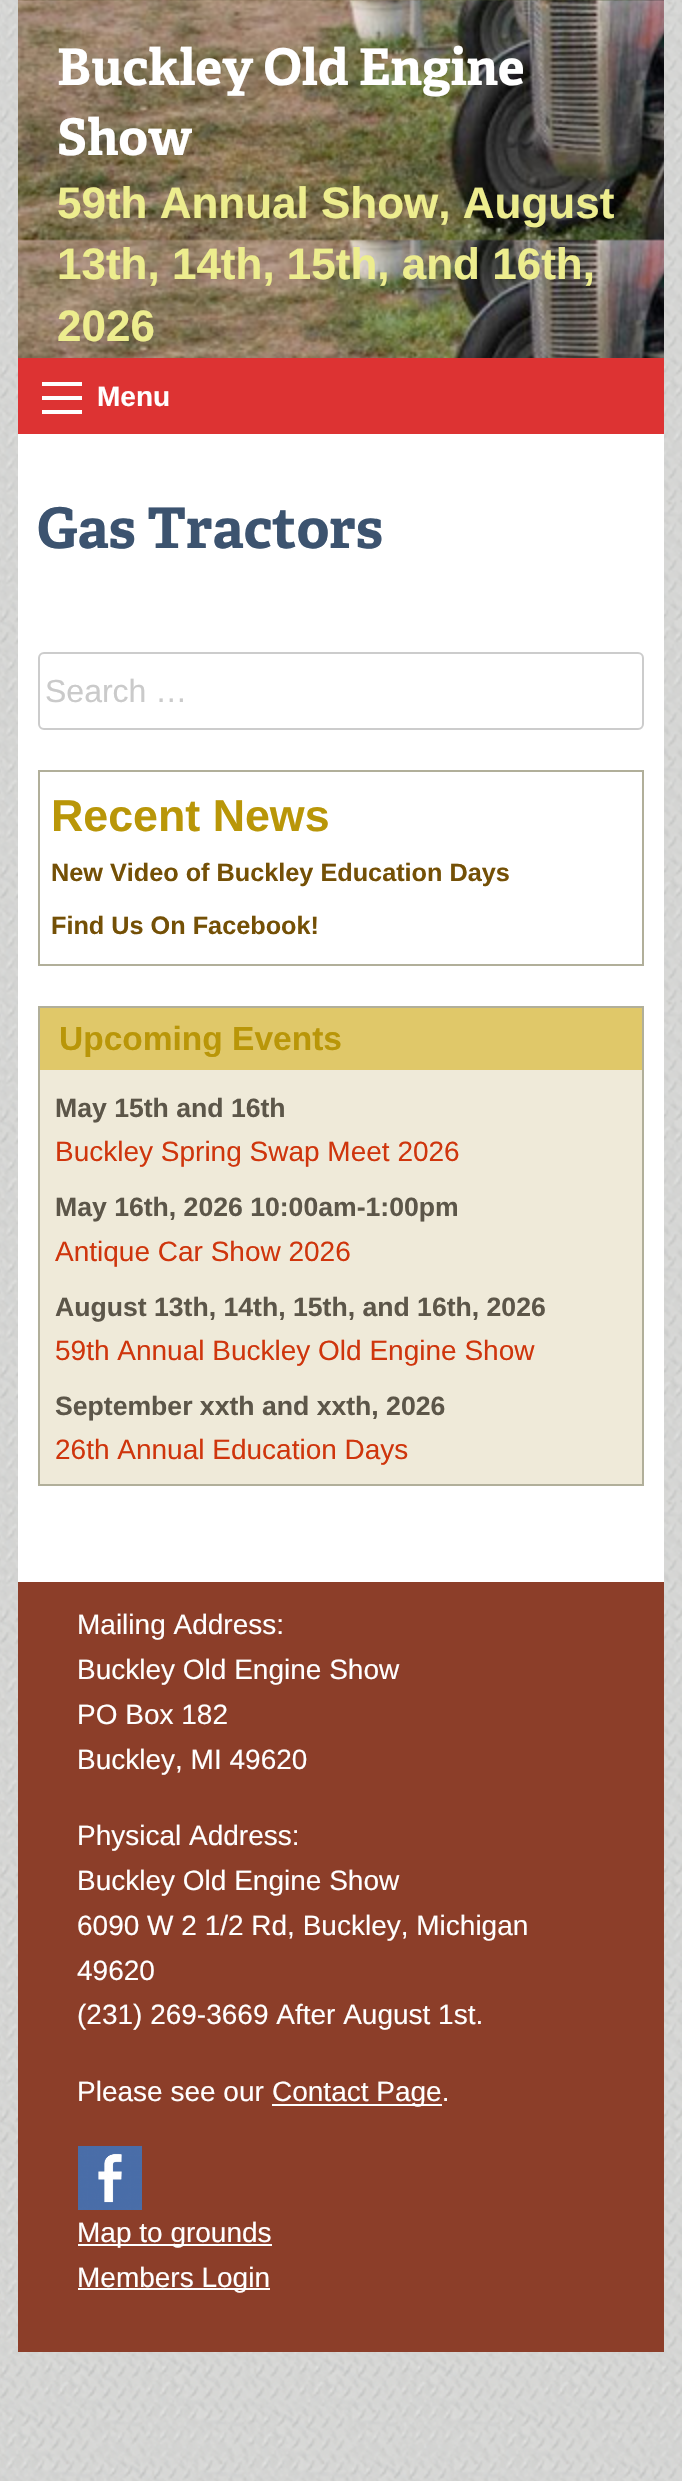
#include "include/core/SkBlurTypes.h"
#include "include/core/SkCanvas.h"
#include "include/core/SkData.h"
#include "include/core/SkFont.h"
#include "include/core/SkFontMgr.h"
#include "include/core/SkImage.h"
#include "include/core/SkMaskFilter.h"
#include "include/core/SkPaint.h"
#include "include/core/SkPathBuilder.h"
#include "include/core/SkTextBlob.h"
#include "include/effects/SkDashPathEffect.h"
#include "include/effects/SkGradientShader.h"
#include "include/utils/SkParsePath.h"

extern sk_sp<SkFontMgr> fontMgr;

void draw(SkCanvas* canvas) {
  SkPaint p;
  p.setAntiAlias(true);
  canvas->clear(SK_ColorWHITE);
  canvas->drawImageRect(SkImages::DeferredFromEncodedData(SkData::MakeFromFileName("images/1.png")), SkRect::MakeLTRB(0, 0, 682, 2481), SkSamplingOptions());
  canvas->drawImageRect(SkImages::DeferredFromEncodedData(SkData::MakeFromFileName("images/2.png")), SkRect::MakeLTRB(18, 0, 664, 358), SkSamplingOptions());
  p.setColor(SkColorSetRGB(221, 51, 51));
  canvas->drawRect(SkRect::MakeLTRB(18, 358, 664, 434), p);
  p.setColor(SkColorSetRGB(254, 254, 254));
  canvas->drawRect(SkRect::MakeLTRB(42, 410, 82, 414), p);
  canvas->drawRect(SkRect::MakeLTRB(42, 396, 82, 400), p);
  canvas->drawRect(SkRect::MakeLTRB(42, 382, 82, 386), p);
  p.setColor(SK_ColorWHITE);
  canvas->drawRect(SkRect::MakeLTRB(18, 434, 664, 1582), p);
  p.setStyle(SkPaint::kStroke_Style);
  p.setStrokeWidth(2);
  p.setColor(SkColorSetRGB(204, 204, 204));
  canvas->drawRoundRect(SkRect::MakeLTRB(39, 653, 643, 729), 5, 5, p);
  p.setColor(SkColorSetRGB(177, 175, 154));
  canvas->drawRect(SkRect::MakeLTRB(39, 771, 643, 965), p);
  p.setStyle(SkPaint::kFill_Style);
  p.setColor(SkColorSetRGB(239, 234, 217));
  canvas->drawRect(SkRect::MakeLTRB(40, 1070, 642, 1484), p);
  p.setStyle(SkPaint::kStroke_Style);
  p.setColor(SkColorSetRGB(177, 175, 154));
  canvas->drawRect(SkRect::MakeLTRB(39, 1007, 643, 1485), p);
  p.setStyle(SkPaint::kFill_Style);
  p.setColor(SkColorSetRGB(224, 200, 105));
  canvas->drawRect(SkRect::MakeLTRB(40, 1008, 642, 1070), p);
  p.setColor(SkColorSetRGB(140, 62, 41));
  canvas->drawRect(SkRect::MakeLTRB(18, 1582, 664, 2352), p);
  p.setColor(SK_ColorWHITE);
  canvas->drawRect(SkRect::MakeLTRB(272, 2104, 442, 2106), p);
  canvas->drawImageRect(SkImages::DeferredFromEncodedData(SkData::MakeFromFileName("images/3.png")), SkRect::MakeLTRB(78, 2146, 142, 2210), SkSamplingOptions());
  canvas->drawRect(SkRect::MakeLTRB(78, 2244, 272, 2246), p);
  canvas->drawRect(SkRect::MakeLTRB(78, 2288, 270, 2290), p);
  SkFont font1(fontMgr->matchFamilyStyle("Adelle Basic", SkFontStyle::Bold()), 50.5f);
  font1.setSubpixel(true);
  canvas->drawString("Buckley Old Engine", 57, 85, font1, p);
  canvas->drawString("Show", 57, 155, font1, p);
  SkFont font2(fontMgr->matchFamilyStyle("Liberation Sans", SkFontStyle::Bold()), 44);
  font2.setSubpixel(true);
  p.setColor(SkColorSetRGB(237, 237, 142));
  canvas->drawString("59th Annual Show, August", 57, 218, font2, p);
  canvas->drawString("13th, 14th, 15th, and 16th,", 57, 279, font2, p);
  canvas->drawString("2026", 57, 341, font2, p);
  SkFont font3(fontMgr->matchFamilyStyle("Liberation Sans", SkFontStyle::Bold()), 28);
  font3.setSubpixel(true);
  p.setColor(SK_ColorWHITE);
  canvas->drawString("Menu", 97, 406, font3, p);
  SkFont font4(fontMgr->matchFamilyStyle("Adelle Basic", SkFontStyle::Bold()), 56);
  font4.setSubpixel(true);
  p.setColor(SkColorSetRGB(60, 83, 111));
  canvas->drawString("Gas Tractors", 37, 548, font4, p);
  SkFont font5(fontMgr->matchFamilyStyle("Liberation Sans", SkFontStyle::Normal()), 32);
  font5.setSubpixel(true);
  p.setColor(SkColorSetRGB(202, 202, 202));
  canvas->drawString("Search …", 45, 702, font5, p);
  SkFont font6(fontMgr->matchFamilyStyle("Liberation Sans", SkFontStyle::Bold()), 44.75f);
  font6.setSubpixel(true);
  p.setColor(SkColorSetRGB(185, 150, 8));
  canvas->drawString("Recent News", 51, 831, font6, p);
  SkFont font7(fontMgr->matchFamilyStyle("Liberation Sans", SkFontStyle::Bold()), 25.25f);
  font7.setSubpixel(true);
  p.setColor(SkColorSetRGB(116, 80, 6));
  canvas->drawString("New Video of Buckley Education Days", 51, 881, font7, p);
  canvas->drawString("Find Us On Facebook!", 51, 934, font7, p);
  SkFont font8(fontMgr->matchFamilyStyle("Liberation Sans", SkFontStyle::Bold()), 33.5f);
  font8.setSubpixel(true);
  p.setColor(SkColorSetRGB(185, 150, 8));
  canvas->drawString("Upcoming Events", 59, 1050, font8, p);
  SkFont font9(fontMgr->matchFamilyStyle("Liberation Sans", SkFontStyle::Bold()), 26.6f);
  font9.setSubpixel(true);
  p.setColor(SkColorSetRGB(92, 86, 73));
  canvas->drawString("May 15th and 16th", 55, 1117, font9, p);
  SkFont font10(fontMgr->matchFamilyStyle("Liberation Sans", SkFontStyle::Normal()), 28);
  font10.setSubpixel(true);
  p.setColor(SkColorSetRGB(207, 53, 12));
  canvas->drawString("Buckley Spring Swap Meet 2026", 55, 1161, font10, p);
  p.setColor(SkColorSetRGB(92, 86, 73));
  canvas->drawString("May 16th, 2026 10:00am-1:00pm", 55, 1216, font9, p);
  p.setColor(SkColorSetRGB(207, 53, 12));
  canvas->drawString("Antique Car Show 2026", 55, 1261, font10, p);
  p.setColor(SkColorSetRGB(92, 86, 73));
  canvas->drawString("August 13th, 14th, 15th, and 16th, 2026", 55, 1316, font9, p);
  p.setColor(SkColorSetRGB(207, 53, 12));
  canvas->drawString("59th Annual Buckley Old Engine Show", 55, 1360, font10, p);
  p.setColor(SkColorSetRGB(92, 86, 73));
  canvas->drawString("September xxth and xxth, 2026", 55, 1415, font9, p);
  p.setColor(SkColorSetRGB(207, 53, 12));
  canvas->drawString("26th Annual Education Days", 55, 1459, font10, p);
  p.setColor(SK_ColorWHITE);
  canvas->drawString("Mailing Address:", 77, 1634, font10, p);
  canvas->drawString("Buckley Old Engine Show", 77, 1679, font10, p);
  canvas->drawString("PO Box 182", 77, 1724, font10, p);
  canvas->drawString("Buckley, MI 49620", 77, 1769, font10, p);
  canvas->drawString("Physical Address:", 77, 1845, font10, p);
  canvas->drawString("Buckley Old Engine Show", 77, 1890, font10, p);
  canvas->drawString("6090 W 2 1/2 Rd, Buckley, Michigan", 77, 1935, font10, p);
  canvas->drawString("49620", 77, 1980, font10, p);
  canvas->drawString("(231) 269-3669 After August 1st.", 77, 2024, font10, p);
  canvas->drawString("Please see our", 77, 2101, font10, p);
  canvas->drawString("Contact Page.", 272, 2101, font10, p);
  canvas->drawString("Map to grounds", 77, 2242, font10, p);
  canvas->drawString("Members Login", 77, 2287, font10, p);
}
